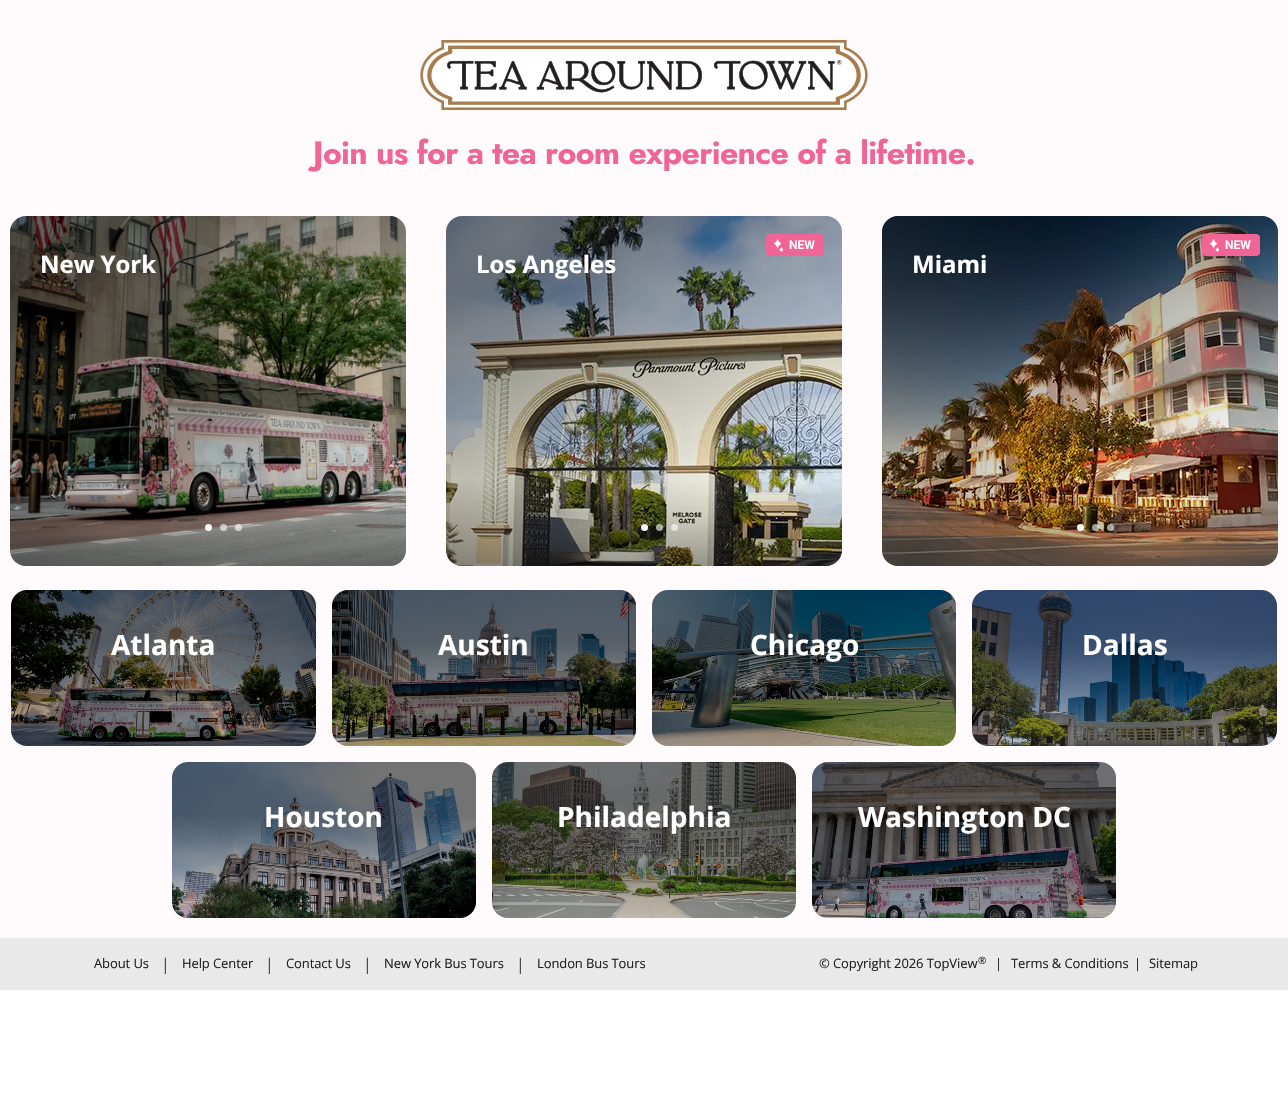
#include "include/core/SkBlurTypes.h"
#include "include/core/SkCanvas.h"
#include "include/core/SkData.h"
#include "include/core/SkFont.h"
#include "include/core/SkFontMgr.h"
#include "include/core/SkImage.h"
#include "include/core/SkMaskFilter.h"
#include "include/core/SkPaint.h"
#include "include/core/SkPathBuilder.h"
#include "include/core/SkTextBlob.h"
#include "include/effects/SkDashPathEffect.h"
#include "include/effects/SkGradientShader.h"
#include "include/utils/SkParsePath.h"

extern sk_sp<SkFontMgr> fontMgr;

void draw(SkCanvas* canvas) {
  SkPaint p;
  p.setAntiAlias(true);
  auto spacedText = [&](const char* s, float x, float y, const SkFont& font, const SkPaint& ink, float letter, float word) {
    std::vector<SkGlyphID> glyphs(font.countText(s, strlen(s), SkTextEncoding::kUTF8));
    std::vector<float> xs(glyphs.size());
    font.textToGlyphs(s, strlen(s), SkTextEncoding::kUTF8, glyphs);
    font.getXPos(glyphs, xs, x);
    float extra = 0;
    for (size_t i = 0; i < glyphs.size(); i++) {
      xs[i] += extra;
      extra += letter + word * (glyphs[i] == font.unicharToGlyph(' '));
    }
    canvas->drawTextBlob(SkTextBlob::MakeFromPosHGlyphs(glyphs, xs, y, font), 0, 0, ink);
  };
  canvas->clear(SK_ColorWHITE);
  p.setColor(SkColorSetRGB(255, 250, 252));
  canvas->drawRect(SkRect::MakeLTRB(0, 0, 1288, 938), p);
  canvas->drawImageRect(SkImages::DeferredFromEncodedData(SkData::MakeFromFileName("images/1.png")), SkRect::MakeLTRB(420, 40, 868, 110), SkSamplingOptions());
  canvas->drawImageRect(SkImages::DeferredFromEncodedData(SkData::MakeFromFileName("images/2.png")), SkRect::MakeLTRB(10, 216, 406, 566), SkSamplingOptions());
  {
    const SkColor colors[] = {SkColorSetARGB(0, 0, 0, 0), SkColorSetARGB(128, 0, 0, 0)};
    const float stops[] = {0.22f, 0.86f};
    const SkPoint ends[] = {{324, 610}, {92, 172}};
    p.setShader(SkGradientShader::MakeLinear(ends, colors, stops, 2, SkTileMode::kClamp));
    p.setAlpha(255);
  }
  canvas->drawRoundRect(SkRect::MakeLTRB(10, 216, 406, 566), 16, 16, p);
  {
    const SkColor colors[] = {SkColorSetARGB(0, 0, 0, 0), SkColorSetARGB(102, 0, 0, 0)};
    const float stops[] = {0.75f, 1};
    const SkPoint ends[] = {{208, 216}, {208, 566}};
    p.setShader(SkGradientShader::MakeLinear(ends, colors, stops, 2, SkTileMode::kClamp));
    p.setAlpha(255);
  }
  canvas->drawRoundRect(SkRect::MakeLTRB(10, 216, 406, 566), 16, 16, p);
  p.setShader(nullptr);
  p.setColor(SK_ColorWHITE);
  canvas->drawCircle(208.5f, 527.5f, 3.5f, p);
  p.setColor(SkColorSetARGB(153, 255, 255, 255));
  canvas->drawCircle(223.5f, 527.5f, 3.5f, p);
  canvas->drawCircle(238.5f, 527.5f, 3.5f, p);
  canvas->drawImageRect(SkImages::DeferredFromEncodedData(SkData::MakeFromFileName("images/3.png")), SkRect::MakeLTRB(446, 216, 842, 566), SkSamplingOptions());
  {
    const SkColor colors[] = {SkColorSetARGB(0, 0, 0, 0), SkColorSetARGB(128, 0, 0, 0)};
    const float stops[] = {0.22f, 0.86f};
    const SkPoint ends[] = {{760, 610}, {528, 172}};
    p.setShader(SkGradientShader::MakeLinear(ends, colors, stops, 2, SkTileMode::kClamp));
    p.setAlpha(255);
  }
  canvas->drawRoundRect(SkRect::MakeLTRB(446, 216, 842, 566), 16, 16, p);
  {
    const SkColor colors[] = {SkColorSetARGB(0, 0, 0, 0), SkColorSetARGB(102, 0, 0, 0)};
    const float stops[] = {0.75f, 1};
    const SkPoint ends[] = {{644, 216}, {644, 566}};
    p.setShader(SkGradientShader::MakeLinear(ends, colors, stops, 2, SkTileMode::kClamp));
    p.setAlpha(255);
  }
  canvas->drawRoundRect(SkRect::MakeLTRB(446, 216, 842, 566), 16, 16, p);
  p.setShader(nullptr);
  p.setColor(SkColorSetRGB(240, 101, 150));
  canvas->drawRoundRect(SkRect::MakeLTRB(766, 234, 824, 256), 4, 4, p);
  canvas->drawImageRect(SkImages::DeferredFromEncodedData(SkData::MakeFromFileName("images/4.png")), SkRect::MakeLTRB(773, 239, 783, 252), SkSamplingOptions());
  p.setColor(SK_ColorWHITE);
  canvas->drawCircle(644.5f, 527.5f, 3.5f, p);
  p.setColor(SkColorSetARGB(153, 255, 255, 255));
  canvas->drawCircle(659.5f, 527.5f, 3.5f, p);
  canvas->drawCircle(674.5f, 527.5f, 3.5f, p);
  canvas->drawImageRect(SkImages::DeferredFromEncodedData(SkData::MakeFromFileName("images/5.png")), SkRect::MakeLTRB(882, 216, 1278, 566), SkSamplingOptions());
  {
    const SkColor colors[] = {SkColorSetARGB(0, 0, 0, 0), SkColorSetARGB(128, 0, 0, 0)};
    const float stops[] = {0.22f, 0.86f};
    const SkPoint ends[] = {{1196, 610}, {964, 172}};
    p.setShader(SkGradientShader::MakeLinear(ends, colors, stops, 2, SkTileMode::kClamp));
    p.setAlpha(255);
  }
  canvas->drawRoundRect(SkRect::MakeLTRB(882, 216, 1278, 566), 16, 16, p);
  {
    const SkColor colors[] = {SkColorSetARGB(0, 0, 0, 0), SkColorSetARGB(102, 0, 0, 0)};
    const float stops[] = {0.75f, 1};
    const SkPoint ends[] = {{1080, 216}, {1080, 566}};
    p.setShader(SkGradientShader::MakeLinear(ends, colors, stops, 2, SkTileMode::kClamp));
    p.setAlpha(255);
  }
  canvas->drawRoundRect(SkRect::MakeLTRB(882, 216, 1278, 566), 16, 16, p);
  p.setShader(nullptr);
  p.setColor(SkColorSetRGB(240, 101, 150));
  canvas->drawRoundRect(SkRect::MakeLTRB(1202, 234, 1260, 256), 4, 4, p);
  canvas->drawImageRect(SkImages::DeferredFromEncodedData(SkData::MakeFromFileName("images/4.png")), SkRect::MakeLTRB(1209, 239, 1219, 252), SkSamplingOptions());
  p.setColor(SK_ColorWHITE);
  canvas->drawCircle(1080.5f, 527.5f, 3.5f, p);
  p.setColor(SkColorSetARGB(153, 255, 255, 255));
  canvas->drawCircle(1095.5f, 527.5f, 3.5f, p);
  canvas->drawCircle(1110.5f, 527.5f, 3.5f, p);
  p.setColor(SkColorSetRGB(211, 211, 211));
  canvas->drawRoundRect(SkRect::MakeLTRB(11, 590, 316, 746), 16, 16, p);
  canvas->drawImageRect(SkImages::DeferredFromEncodedData(SkData::MakeFromFileName("images/6.png")), SkRect::MakeLTRB(11, 590, 316, 746), SkSamplingOptions());
  canvas->drawRoundRect(SkRect::MakeLTRB(332, 590, 636, 746), 16, 16, p);
  canvas->drawImageRect(SkImages::DeferredFromEncodedData(SkData::MakeFromFileName("images/7.png")), SkRect::MakeLTRB(332, 590, 636, 746), SkSamplingOptions());
  canvas->drawRoundRect(SkRect::MakeLTRB(652, 590, 956, 746), 16, 16, p);
  canvas->drawImageRect(SkImages::DeferredFromEncodedData(SkData::MakeFromFileName("images/8.png")), SkRect::MakeLTRB(652, 590, 956, 746), SkSamplingOptions());
  canvas->drawRoundRect(SkRect::MakeLTRB(972, 590, 1277, 746), 16, 16, p);
  canvas->drawImageRect(SkImages::DeferredFromEncodedData(SkData::MakeFromFileName("images/9.png")), SkRect::MakeLTRB(972, 590, 1277, 746), SkSamplingOptions());
  canvas->drawRoundRect(SkRect::MakeLTRB(172, 762, 476, 918), 16, 16, p);
  canvas->drawImageRect(SkImages::DeferredFromEncodedData(SkData::MakeFromFileName("images/10.png")), SkRect::MakeLTRB(172, 762, 476, 918), SkSamplingOptions());
  canvas->drawRoundRect(SkRect::MakeLTRB(492, 762, 796, 918), 16, 16, p);
  canvas->drawImageRect(SkImages::DeferredFromEncodedData(SkData::MakeFromFileName("images/11.png")), SkRect::MakeLTRB(492, 762, 796, 918), SkSamplingOptions());
  canvas->drawRoundRect(SkRect::MakeLTRB(812, 762, 1116, 918), 16, 16, p);
  canvas->drawImageRect(SkImages::DeferredFromEncodedData(SkData::MakeFromFileName("images/12.png")), SkRect::MakeLTRB(812, 762, 1116, 918), SkSamplingOptions());
  p.setColor(SkColorSetRGB(233, 233, 233));
  canvas->drawRect(SkRect::MakeLTRB(0, 938, 1288, 990), p);
  SkFont font1(fontMgr->matchFamilyStyle("Jost", SkFontStyle::Bold()), 32);
  font1.setSubpixel(true);
  p.setColor(SkColorSetRGB(240, 101, 150));
  spacedText("Join us for a tea room experience of a lifetime.", 313, 164, font1, p, -0.65f, 0);
  SkFont font2(fontMgr->matchFamilyStyle("Open Sans", SkFontStyle::Bold()), 24);
  font2.setSubpixel(true);
  p.setColor(SK_ColorWHITE);
  canvas->drawString("New York", 40, 273, font2, p);
  SkFont font3(fontMgr->matchFamilyStyle("Roboto", SkFontStyle(600, SkFontStyle::kNormal_Width, SkFontStyle::kUpright_Slant)), 12);
  font3.setSubpixel(true);
  canvas->drawString("NEW", 789, 249, font3, p);
  canvas->drawString("Los Angeles", 476, 273, font2, p);
  canvas->drawString("NEW", 1225, 249, font3, p);
  canvas->drawString("Miami", 912, 273, font2, p);
  SkFont font4(fontMgr->matchFamilyStyle("Open Sans", SkFontStyle::Bold()), 28);
  font4.setSubpixel(true);
  canvas->drawString("Atlanta", 111, 655, font4, p);
  canvas->drawString("Austin", 438, 655, font4, p);
  canvas->drawString("Chicago", 750, 655, font4, p);
  canvas->drawString("Dallas", 1082, 655, font4, p);
  canvas->drawString("Houston", 264, 827, font4, p);
  canvas->drawString("Philadelphia", 557, 827, font4, p);
  canvas->drawString("Washington DC", 858, 827, font4, p);
  SkFont font5(fontMgr->matchFamilyStyle("Open Sans", SkFontStyle::Normal()), 13);
  font5.setSubpixel(true);
  p.setColor(SkColorSetRGB(34, 34, 34));
  spacedText("About Us", 94, 968, font5, p, -0.1f, 0);
  SkFont font6(fontMgr->matchFamilyStyle("Open Sans", SkFontStyle::Normal()), 16);
  font6.setSubpixel(true);
  p.setColor(SkColorSetRGB(68, 68, 68));
  canvas->drawString("|", 161, 970, font6, p);
  p.setColor(SkColorSetRGB(34, 34, 34));
  spacedText("Help Center", 182, 968, font5, p, -0.1f, 0);
  p.setColor(SkColorSetRGB(68, 68, 68));
  canvas->drawString("|", 265, 970, font6, p);
  p.setColor(SkColorSetRGB(34, 34, 34));
  spacedText("Contact Us", 286, 968, font5, p, -0.1f, 0);
  p.setColor(SkColorSetRGB(68, 68, 68));
  canvas->drawString("|", 363, 970, font6, p);
  p.setColor(SkColorSetRGB(34, 34, 34));
  spacedText("New York Bus Tours", 384, 968, font5, p, -0.1f, 0);
  p.setColor(SkColorSetRGB(68, 68, 68));
  canvas->drawString("|", 516, 970, font6, p);
  p.setColor(SkColorSetRGB(34, 34, 34));
  spacedText("London Bus Tours", 537, 968, font5, p, -0.1f, 0);
  spacedText("© Copyright 2026 TopView", 819, 968, font5, p, -0.1f, 0);
  SkFont font7(fontMgr->matchFamilyStyle("Open Sans", SkFontStyle::Normal()), 10);
  font7.setSubpixel(true);
  spacedText("®", 978, 964, font7, p, -0.1f, 0);
  spacedText("|", 995, 968, font5, p, -0.1f, 0);
  spacedText("Terms & Conditions", 1011, 968, font5, p, -0.1f, 0);
  spacedText("|", 1134, 968, font5, p, -0.1f, 0);
  spacedText("Sitemap", 1149, 968, font5, p, -0.1f, 0);
}
